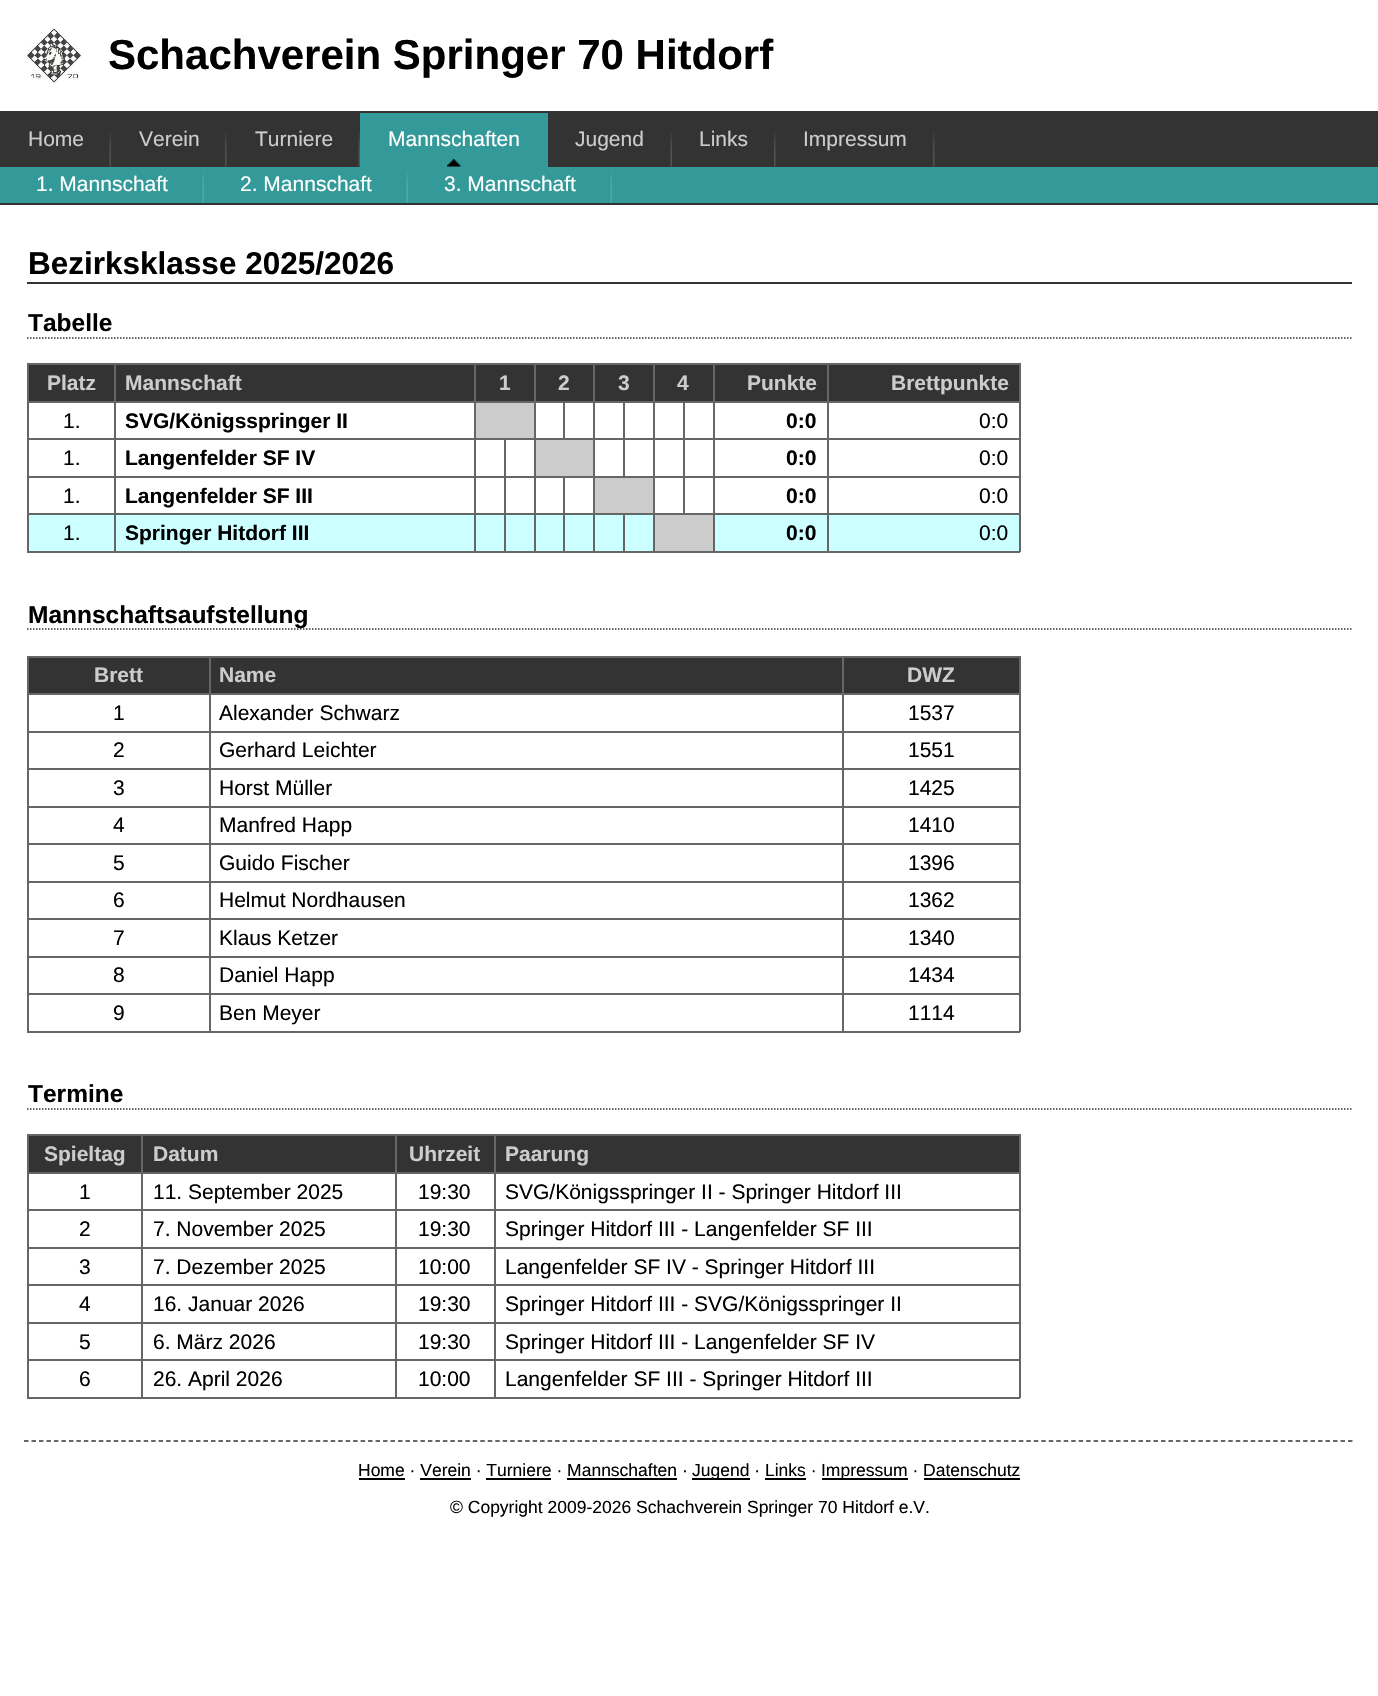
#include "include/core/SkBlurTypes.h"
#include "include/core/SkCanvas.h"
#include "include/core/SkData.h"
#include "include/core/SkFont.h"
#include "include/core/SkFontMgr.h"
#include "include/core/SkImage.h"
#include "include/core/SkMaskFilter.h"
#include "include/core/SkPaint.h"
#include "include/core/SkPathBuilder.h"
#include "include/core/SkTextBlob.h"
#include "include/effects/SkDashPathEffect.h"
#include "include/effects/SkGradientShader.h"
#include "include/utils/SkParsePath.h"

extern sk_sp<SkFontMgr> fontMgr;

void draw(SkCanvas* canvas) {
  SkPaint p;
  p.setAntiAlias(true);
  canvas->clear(SK_ColorWHITE);
  canvas->drawImageRect(SkImages::DeferredFromEncodedData(SkData::MakeFromFileName("images/1.png")), SkRect::MakeLTRB(27, 28, 81, 83), SkSamplingOptions());
  p.setColor(SkColorSetRGB(51, 51, 51));
  canvas->drawRect(SkRect::MakeLTRB(0, 111, 1378, 167), p);
  canvas->drawImageRect(SkImages::DeferredFromEncodedData(SkData::MakeFromFileName("images/2.png")), SkRect::MakeLTRB(109, 130, 111, 167), SkSamplingOptions());
  canvas->drawImageRect(SkImages::DeferredFromEncodedData(SkData::MakeFromFileName("images/3.png")), SkRect::MakeLTRB(225, 130, 227, 167), SkSamplingOptions());
  canvas->drawImageRect(SkImages::DeferredFromEncodedData(SkData::MakeFromFileName("images/2.png")), SkRect::MakeLTRB(358, 130, 360, 167), SkSamplingOptions());
  p.setColor(SkColorSetRGB(51, 153, 153));
  canvas->drawRect(SkRect::MakeLTRB(360, 113, 548, 167), p);
  canvas->drawImageRect(SkImages::DeferredFromEncodedData(SkData::MakeFromFileName("images/4.png")), SkRect::MakeLTRB(447, 159, 461, 167), SkSamplingOptions());
  canvas->drawImageRect(SkImages::DeferredFromEncodedData(SkData::MakeFromFileName("images/2.png")), SkRect::MakeLTRB(670, 130, 672, 167), SkSamplingOptions());
  canvas->drawImageRect(SkImages::DeferredFromEncodedData(SkData::MakeFromFileName("images/3.png")), SkRect::MakeLTRB(774, 130, 776, 167), SkSamplingOptions());
  canvas->drawImageRect(SkImages::DeferredFromEncodedData(SkData::MakeFromFileName("images/3.png")), SkRect::MakeLTRB(933, 130, 935, 167), SkSamplingOptions());
  canvas->drawRect(SkRect::MakeLTRB(0, 167, 1378, 203), p);
  p.setColor(SkColorSetRGB(51, 51, 51));
  canvas->drawRect(SkRect::MakeLTRB(0, 203, 1378, 205), p);
  canvas->drawImageRect(SkImages::DeferredFromEncodedData(SkData::MakeFromFileName("images/5.png")), SkRect::MakeLTRB(202, 167, 204, 203), SkSamplingOptions());
  canvas->drawImageRect(SkImages::DeferredFromEncodedData(SkData::MakeFromFileName("images/5.png")), SkRect::MakeLTRB(406, 167, 408, 203), SkSamplingOptions());
  canvas->drawImageRect(SkImages::DeferredFromEncodedData(SkData::MakeFromFileName("images/5.png")), SkRect::MakeLTRB(610, 167, 612, 203), SkSamplingOptions());
  canvas->drawRect(SkRect::MakeLTRB(27, 282, 1352, 284), p);
  p.setStyle(SkPaint::kStroke_Style);
  p.setStrokeWidth(1.5f);
  p.setPathEffect(SkDashPathEffect::Make({{1.5f, 1.5f}}, 0));
  canvas->drawPath(SkPathBuilder().moveTo(27, 338).lineTo(1351.5f, 338).detach(), p);
  p.setPathEffect(nullptr);
  p.setStyle(SkPaint::kFill_Style);
  canvas->drawRect(SkRect::MakeLTRB(29, 365, 114, 401), p);
  p.setColor(SkColorSetRGB(102, 102, 102));
  canvas->drawRect(SkRect::MakeLTRB(827, 363, 1020, 365), p);
  canvas->drawRect(SkRect::MakeLTRB(827, 401, 1020, 403), p);
  canvas->drawRect(SkRect::MakeLTRB(827, 438, 1020, 440), p);
  canvas->drawRect(SkRect::MakeLTRB(827, 476, 1020, 478), p);
  canvas->drawRect(SkRect::MakeLTRB(827, 513, 1020, 515), p);
  p.setColor(SkColorSetRGB(204, 255, 255));
  canvas->drawRect(SkRect::MakeLTRB(29, 515, 1019, 551), p);
  p.setColor(SkColorSetRGB(102, 102, 102));
  canvas->drawRect(SkRect::MakeLTRB(1019, 513, 1021, 552), p);
  canvas->drawRect(SkRect::MakeLTRB(827, 551, 1020, 553), p);
  canvas->drawRect(SkRect::MakeLTRB(827, 513, 829, 552), p);
  canvas->drawRect(SkRect::MakeLTRB(713, 513, 828, 515), p);
  canvas->drawRect(SkRect::MakeLTRB(827, 476, 829, 515), p);
  canvas->drawRect(SkRect::MakeLTRB(713, 476, 828, 478), p);
  canvas->drawRect(SkRect::MakeLTRB(827, 438, 829, 477), p);
  canvas->drawRect(SkRect::MakeLTRB(713, 438, 828, 440), p);
  canvas->drawRect(SkRect::MakeLTRB(827, 401, 829, 440), p);
  canvas->drawRect(SkRect::MakeLTRB(713, 401, 828, 403), p);
  canvas->drawRect(SkRect::MakeLTRB(827, 363, 829, 402), p);
  canvas->drawRect(SkRect::MakeLTRB(713, 363, 828, 365), p);
  canvas->drawRect(SkRect::MakeLTRB(713, 551, 828, 553), p);
  canvas->drawRect(SkRect::MakeLTRB(713, 513, 715, 552), p);
  canvas->drawRect(SkRect::MakeLTRB(653, 513, 714, 515), p);
  canvas->drawRect(SkRect::MakeLTRB(713, 476, 715, 515), p);
  canvas->drawRect(SkRect::MakeLTRB(683, 476, 714, 478), p);
  canvas->drawRect(SkRect::MakeLTRB(713, 438, 715, 477), p);
  canvas->drawRect(SkRect::MakeLTRB(683, 438, 714, 440), p);
  canvas->drawRect(SkRect::MakeLTRB(713, 401, 715, 440), p);
  canvas->drawRect(SkRect::MakeLTRB(683, 401, 714, 403), p);
  canvas->drawRect(SkRect::MakeLTRB(713, 363, 715, 402), p);
  canvas->drawRect(SkRect::MakeLTRB(653, 363, 714, 365), p);
  canvas->drawRect(SkRect::MakeLTRB(683, 476, 685, 515), p);
  canvas->drawRect(SkRect::MakeLTRB(653, 476, 684, 478), p);
  canvas->drawRect(SkRect::MakeLTRB(683, 438, 685, 477), p);
  canvas->drawRect(SkRect::MakeLTRB(653, 438, 684, 440), p);
  canvas->drawRect(SkRect::MakeLTRB(683, 401, 685, 440), p);
  canvas->drawRect(SkRect::MakeLTRB(653, 401, 684, 403), p);
  canvas->drawRect(SkRect::MakeLTRB(653, 551, 714, 553), p);
  canvas->drawRect(SkRect::MakeLTRB(653, 513, 655, 552), p);
  canvas->drawRect(SkRect::MakeLTRB(623, 513, 654, 515), p);
  canvas->drawRect(SkRect::MakeLTRB(653, 476, 655, 515), p);
  canvas->drawRect(SkRect::MakeLTRB(593, 476, 654, 478), p);
  canvas->drawRect(SkRect::MakeLTRB(653, 438, 655, 477), p);
  canvas->drawRect(SkRect::MakeLTRB(623, 438, 654, 440), p);
  canvas->drawRect(SkRect::MakeLTRB(653, 401, 655, 440), p);
  canvas->drawRect(SkRect::MakeLTRB(623, 401, 654, 403), p);
  canvas->drawRect(SkRect::MakeLTRB(653, 363, 655, 402), p);
  canvas->drawRect(SkRect::MakeLTRB(593, 363, 654, 365), p);
  canvas->drawRect(SkRect::MakeLTRB(623, 438, 625, 477), p);
  canvas->drawRect(SkRect::MakeLTRB(593, 438, 624, 440), p);
  canvas->drawRect(SkRect::MakeLTRB(623, 401, 625, 440), p);
  canvas->drawRect(SkRect::MakeLTRB(593, 401, 624, 403), p);
  canvas->drawRect(SkRect::MakeLTRB(623, 551, 654, 553), p);
  canvas->drawRect(SkRect::MakeLTRB(623, 513, 625, 552), p);
  canvas->drawRect(SkRect::MakeLTRB(593, 513, 624, 515), p);
  canvas->drawRect(SkRect::MakeLTRB(593, 551, 624, 553), p);
  canvas->drawRect(SkRect::MakeLTRB(593, 513, 595, 552), p);
  canvas->drawRect(SkRect::MakeLTRB(563, 513, 594, 515), p);
  canvas->drawRect(SkRect::MakeLTRB(593, 476, 595, 515), p);
  canvas->drawRect(SkRect::MakeLTRB(563, 476, 594, 478), p);
  canvas->drawRect(SkRect::MakeLTRB(593, 438, 595, 477), p);
  canvas->drawRect(SkRect::MakeLTRB(534, 438, 594, 440), p);
  canvas->drawRect(SkRect::MakeLTRB(593, 401, 595, 440), p);
  canvas->drawRect(SkRect::MakeLTRB(563, 401, 594, 403), p);
  canvas->drawRect(SkRect::MakeLTRB(593, 363, 595, 402), p);
  canvas->drawRect(SkRect::MakeLTRB(534, 363, 594, 365), p);
  canvas->drawRect(SkRect::MakeLTRB(563, 401, 565, 440), p);
  canvas->drawRect(SkRect::MakeLTRB(534, 401, 564, 403), p);
  canvas->drawRect(SkRect::MakeLTRB(563, 551, 594, 553), p);
  canvas->drawRect(SkRect::MakeLTRB(563, 513, 565, 552), p);
  canvas->drawRect(SkRect::MakeLTRB(534, 513, 564, 515), p);
  canvas->drawRect(SkRect::MakeLTRB(563, 476, 565, 515), p);
  canvas->drawRect(SkRect::MakeLTRB(534, 476, 564, 478), p);
  canvas->drawRect(SkRect::MakeLTRB(534, 551, 564, 553), p);
  canvas->drawRect(SkRect::MakeLTRB(534, 513, 536, 552), p);
  canvas->drawRect(SkRect::MakeLTRB(504, 513, 536, 515), p);
  canvas->drawRect(SkRect::MakeLTRB(534, 476, 536, 515), p);
  canvas->drawRect(SkRect::MakeLTRB(504, 476, 536, 478), p);
  canvas->drawRect(SkRect::MakeLTRB(534, 438, 536, 477), p);
  canvas->drawRect(SkRect::MakeLTRB(504, 438, 536, 440), p);
  canvas->drawRect(SkRect::MakeLTRB(534, 401, 536, 440), p);
  canvas->drawRect(SkRect::MakeLTRB(474, 401, 536, 403), p);
  canvas->drawRect(SkRect::MakeLTRB(534, 363, 536, 402), p);
  canvas->drawRect(SkRect::MakeLTRB(474, 363, 536, 365), p);
  canvas->drawRect(SkRect::MakeLTRB(504, 551, 536, 553), p);
  canvas->drawRect(SkRect::MakeLTRB(504, 513, 506, 552), p);
  canvas->drawRect(SkRect::MakeLTRB(474, 513, 506, 515), p);
  canvas->drawRect(SkRect::MakeLTRB(504, 476, 506, 515), p);
  canvas->drawRect(SkRect::MakeLTRB(474, 476, 506, 478), p);
  canvas->drawRect(SkRect::MakeLTRB(504, 438, 506, 477), p);
  canvas->drawRect(SkRect::MakeLTRB(474, 438, 506, 440), p);
  canvas->drawRect(SkRect::MakeLTRB(474, 551, 506, 553), p);
  canvas->drawRect(SkRect::MakeLTRB(474, 513, 476, 552), p);
  canvas->drawRect(SkRect::MakeLTRB(114, 513, 476, 515), p);
  canvas->drawRect(SkRect::MakeLTRB(474, 476, 476, 515), p);
  canvas->drawRect(SkRect::MakeLTRB(114, 476, 476, 478), p);
  canvas->drawRect(SkRect::MakeLTRB(474, 438, 476, 477), p);
  canvas->drawRect(SkRect::MakeLTRB(114, 438, 476, 440), p);
  canvas->drawRect(SkRect::MakeLTRB(474, 401, 476, 440), p);
  canvas->drawRect(SkRect::MakeLTRB(114, 401, 476, 403), p);
  canvas->drawRect(SkRect::MakeLTRB(474, 363, 476, 402), p);
  canvas->drawRect(SkRect::MakeLTRB(114, 363, 476, 365), p);
  canvas->drawRect(SkRect::MakeLTRB(114, 551, 476, 553), p);
  canvas->drawRect(SkRect::MakeLTRB(114, 513, 116, 552), p);
  canvas->drawRect(SkRect::MakeLTRB(27, 513, 116, 515), p);
  canvas->drawRect(SkRect::MakeLTRB(114, 476, 116, 515), p);
  canvas->drawRect(SkRect::MakeLTRB(27, 476, 116, 478), p);
  canvas->drawRect(SkRect::MakeLTRB(114, 438, 116, 477), p);
  canvas->drawRect(SkRect::MakeLTRB(27, 438, 116, 440), p);
  canvas->drawRect(SkRect::MakeLTRB(114, 401, 116, 440), p);
  canvas->drawRect(SkRect::MakeLTRB(27, 401, 116, 403), p);
  canvas->drawRect(SkRect::MakeLTRB(114, 363, 116, 402), p);
  canvas->drawRect(SkRect::MakeLTRB(27, 363, 116, 365), p);
  canvas->drawRect(SkRect::MakeLTRB(27, 551, 116, 553), p);
  canvas->drawRect(SkRect::MakeLTRB(27, 513, 29, 552), p);
  canvas->drawRect(SkRect::MakeLTRB(27, 476, 29, 515), p);
  canvas->drawRect(SkRect::MakeLTRB(27, 438, 29, 477), p);
  canvas->drawRect(SkRect::MakeLTRB(27, 401, 29, 440), p);
  canvas->drawRect(SkRect::MakeLTRB(27, 363, 29, 402), p);
  p.setColor(SkColorSetRGB(51, 51, 51));
  canvas->drawRect(SkRect::MakeLTRB(116, 365, 474, 401), p);
  canvas->drawRect(SkRect::MakeLTRB(476, 365, 534, 401), p);
  canvas->drawRect(SkRect::MakeLTRB(536, 365, 593, 401), p);
  canvas->drawRect(SkRect::MakeLTRB(595, 365, 653, 401), p);
  canvas->drawRect(SkRect::MakeLTRB(655, 365, 713, 401), p);
  canvas->drawRect(SkRect::MakeLTRB(715, 365, 827, 401), p);
  canvas->drawRect(SkRect::MakeLTRB(829, 365, 1019, 401), p);
  p.setColor(SkColorSetRGB(102, 102, 102));
  canvas->drawRect(SkRect::MakeLTRB(1019, 476, 1021, 515), p);
  canvas->drawRect(SkRect::MakeLTRB(1019, 438, 1021, 477), p);
  canvas->drawRect(SkRect::MakeLTRB(1019, 401, 1021, 440), p);
  canvas->drawRect(SkRect::MakeLTRB(1019, 363, 1021, 402), p);
  p.setColor(SkColorSetRGB(204, 204, 204));
  canvas->drawRect(SkRect::MakeLTRB(476, 403, 534, 438), p);
  canvas->drawRect(SkRect::MakeLTRB(536, 440, 593, 476), p);
  canvas->drawRect(SkRect::MakeLTRB(595, 478, 653, 513), p);
  canvas->drawRect(SkRect::MakeLTRB(655, 515, 713, 551), p);
  p.setStyle(SkPaint::kStroke_Style);
  p.setColor(SkColorSetRGB(51, 51, 51));
  p.setPathEffect(SkDashPathEffect::Make({{1.5f, 1.5f}}, 0));
  canvas->drawPath(SkPathBuilder().moveTo(27, 629).lineTo(1351.5f, 629).detach(), p);
  p.setPathEffect(nullptr);
  p.setStyle(SkPaint::kFill_Style);
  canvas->drawRect(SkRect::MakeLTRB(29, 658, 209, 693), p);
  p.setColor(SkColorSetRGB(102, 102, 102));
  canvas->drawRect(SkRect::MakeLTRB(842, 656, 1020, 658), p);
  canvas->drawRect(SkRect::MakeLTRB(842, 693, 1020, 695), p);
  canvas->drawRect(SkRect::MakeLTRB(842, 731, 1020, 733), p);
  canvas->drawRect(SkRect::MakeLTRB(842, 768, 1020, 770), p);
  canvas->drawRect(SkRect::MakeLTRB(842, 806, 1020, 808), p);
  canvas->drawRect(SkRect::MakeLTRB(842, 843, 1020, 845), p);
  canvas->drawRect(SkRect::MakeLTRB(842, 881, 1020, 883), p);
  canvas->drawRect(SkRect::MakeLTRB(842, 918, 1020, 920), p);
  canvas->drawRect(SkRect::MakeLTRB(842, 956, 1020, 958), p);
  canvas->drawRect(SkRect::MakeLTRB(842, 993, 1020, 995), p);
  canvas->drawRect(SkRect::MakeLTRB(1019, 993, 1021, 1032), p);
  canvas->drawRect(SkRect::MakeLTRB(842, 1031, 1020, 1033), p);
  canvas->drawRect(SkRect::MakeLTRB(842, 993, 844, 1032), p);
  canvas->drawRect(SkRect::MakeLTRB(209, 993, 843, 995), p);
  canvas->drawRect(SkRect::MakeLTRB(842, 956, 844, 995), p);
  canvas->drawRect(SkRect::MakeLTRB(209, 956, 843, 958), p);
  canvas->drawRect(SkRect::MakeLTRB(842, 918, 844, 957), p);
  canvas->drawRect(SkRect::MakeLTRB(209, 918, 843, 920), p);
  canvas->drawRect(SkRect::MakeLTRB(842, 881, 844, 920), p);
  canvas->drawRect(SkRect::MakeLTRB(209, 881, 843, 883), p);
  canvas->drawRect(SkRect::MakeLTRB(842, 843, 844, 882), p);
  canvas->drawRect(SkRect::MakeLTRB(209, 843, 843, 845), p);
  canvas->drawRect(SkRect::MakeLTRB(842, 806, 844, 845), p);
  canvas->drawRect(SkRect::MakeLTRB(209, 806, 843, 808), p);
  canvas->drawRect(SkRect::MakeLTRB(842, 768, 844, 807), p);
  canvas->drawRect(SkRect::MakeLTRB(209, 768, 843, 770), p);
  canvas->drawRect(SkRect::MakeLTRB(842, 731, 844, 770), p);
  canvas->drawRect(SkRect::MakeLTRB(209, 731, 843, 733), p);
  canvas->drawRect(SkRect::MakeLTRB(842, 693, 844, 732), p);
  canvas->drawRect(SkRect::MakeLTRB(209, 693, 843, 695), p);
  canvas->drawRect(SkRect::MakeLTRB(842, 656, 844, 695), p);
  canvas->drawRect(SkRect::MakeLTRB(209, 656, 843, 658), p);
  canvas->drawRect(SkRect::MakeLTRB(209, 1031, 843, 1033), p);
  canvas->drawRect(SkRect::MakeLTRB(209, 993, 211, 1032), p);
  canvas->drawRect(SkRect::MakeLTRB(27, 993, 210, 995), p);
  canvas->drawRect(SkRect::MakeLTRB(209, 956, 211, 995), p);
  canvas->drawRect(SkRect::MakeLTRB(27, 956, 210, 958), p);
  canvas->drawRect(SkRect::MakeLTRB(209, 918, 211, 957), p);
  canvas->drawRect(SkRect::MakeLTRB(27, 918, 210, 920), p);
  canvas->drawRect(SkRect::MakeLTRB(209, 881, 211, 920), p);
  canvas->drawRect(SkRect::MakeLTRB(27, 881, 210, 883), p);
  canvas->drawRect(SkRect::MakeLTRB(209, 843, 211, 882), p);
  canvas->drawRect(SkRect::MakeLTRB(27, 843, 210, 845), p);
  canvas->drawRect(SkRect::MakeLTRB(209, 806, 211, 845), p);
  canvas->drawRect(SkRect::MakeLTRB(27, 806, 210, 808), p);
  canvas->drawRect(SkRect::MakeLTRB(209, 768, 211, 807), p);
  canvas->drawRect(SkRect::MakeLTRB(27, 768, 210, 770), p);
  canvas->drawRect(SkRect::MakeLTRB(209, 731, 211, 770), p);
  canvas->drawRect(SkRect::MakeLTRB(27, 731, 210, 733), p);
  canvas->drawRect(SkRect::MakeLTRB(209, 693, 211, 732), p);
  canvas->drawRect(SkRect::MakeLTRB(27, 693, 210, 695), p);
  canvas->drawRect(SkRect::MakeLTRB(209, 656, 211, 695), p);
  canvas->drawRect(SkRect::MakeLTRB(27, 656, 210, 658), p);
  canvas->drawRect(SkRect::MakeLTRB(27, 1031, 210, 1033), p);
  canvas->drawRect(SkRect::MakeLTRB(27, 993, 29, 1032), p);
  canvas->drawRect(SkRect::MakeLTRB(27, 956, 29, 995), p);
  canvas->drawRect(SkRect::MakeLTRB(27, 918, 29, 957), p);
  canvas->drawRect(SkRect::MakeLTRB(27, 881, 29, 920), p);
  canvas->drawRect(SkRect::MakeLTRB(27, 843, 29, 882), p);
  canvas->drawRect(SkRect::MakeLTRB(27, 806, 29, 845), p);
  canvas->drawRect(SkRect::MakeLTRB(27, 768, 29, 807), p);
  canvas->drawRect(SkRect::MakeLTRB(27, 731, 29, 770), p);
  canvas->drawRect(SkRect::MakeLTRB(27, 693, 29, 732), p);
  canvas->drawRect(SkRect::MakeLTRB(27, 656, 29, 695), p);
  p.setColor(SkColorSetRGB(51, 51, 51));
  canvas->drawRect(SkRect::MakeLTRB(211, 658, 842, 693), p);
  canvas->drawRect(SkRect::MakeLTRB(844, 658, 1019, 693), p);
  p.setColor(SkColorSetRGB(102, 102, 102));
  canvas->drawRect(SkRect::MakeLTRB(1019, 956, 1021, 995), p);
  canvas->drawRect(SkRect::MakeLTRB(1019, 918, 1021, 957), p);
  canvas->drawRect(SkRect::MakeLTRB(1019, 881, 1021, 920), p);
  canvas->drawRect(SkRect::MakeLTRB(1019, 843, 1021, 882), p);
  canvas->drawRect(SkRect::MakeLTRB(1019, 806, 1021, 845), p);
  canvas->drawRect(SkRect::MakeLTRB(1019, 768, 1021, 807), p);
  canvas->drawRect(SkRect::MakeLTRB(1019, 731, 1021, 770), p);
  canvas->drawRect(SkRect::MakeLTRB(1019, 693, 1021, 732), p);
  canvas->drawRect(SkRect::MakeLTRB(1019, 656, 1021, 695), p);
  p.setStyle(SkPaint::kStroke_Style);
  p.setColor(SkColorSetRGB(51, 51, 51));
  p.setPathEffect(SkDashPathEffect::Make({{1.5f, 1.5f}}, 0));
  canvas->drawPath(SkPathBuilder().moveTo(27, 1109).lineTo(1351.5f, 1109).detach(), p);
  p.setPathEffect(nullptr);
  p.setStyle(SkPaint::kFill_Style);
  canvas->drawRect(SkRect::MakeLTRB(29, 1136, 141, 1172), p);
  p.setColor(SkColorSetRGB(102, 102, 102));
  canvas->drawRect(SkRect::MakeLTRB(494, 1134, 1020, 1136), p);
  canvas->drawRect(SkRect::MakeLTRB(494, 1172, 1020, 1174), p);
  canvas->drawRect(SkRect::MakeLTRB(494, 1209, 1020, 1211), p);
  canvas->drawRect(SkRect::MakeLTRB(494, 1247, 1020, 1249), p);
  canvas->drawRect(SkRect::MakeLTRB(494, 1284, 1020, 1286), p);
  canvas->drawRect(SkRect::MakeLTRB(494, 1322, 1020, 1324), p);
  canvas->drawRect(SkRect::MakeLTRB(494, 1359, 1020, 1361), p);
  canvas->drawRect(SkRect::MakeLTRB(1019, 1359, 1021, 1398), p);
  canvas->drawRect(SkRect::MakeLTRB(494, 1397, 1020, 1399), p);
  canvas->drawRect(SkRect::MakeLTRB(494, 1359, 496, 1398), p);
  canvas->drawRect(SkRect::MakeLTRB(395, 1359, 495, 1361), p);
  canvas->drawRect(SkRect::MakeLTRB(494, 1322, 496, 1361), p);
  canvas->drawRect(SkRect::MakeLTRB(395, 1322, 495, 1324), p);
  canvas->drawRect(SkRect::MakeLTRB(494, 1284, 496, 1323), p);
  canvas->drawRect(SkRect::MakeLTRB(395, 1284, 495, 1286), p);
  canvas->drawRect(SkRect::MakeLTRB(494, 1247, 496, 1286), p);
  canvas->drawRect(SkRect::MakeLTRB(395, 1247, 495, 1249), p);
  canvas->drawRect(SkRect::MakeLTRB(494, 1209, 496, 1248), p);
  canvas->drawRect(SkRect::MakeLTRB(395, 1209, 495, 1211), p);
  canvas->drawRect(SkRect::MakeLTRB(494, 1172, 496, 1211), p);
  canvas->drawRect(SkRect::MakeLTRB(395, 1172, 495, 1174), p);
  canvas->drawRect(SkRect::MakeLTRB(494, 1134, 496, 1173), p);
  canvas->drawRect(SkRect::MakeLTRB(395, 1134, 495, 1136), p);
  canvas->drawRect(SkRect::MakeLTRB(395, 1397, 495, 1399), p);
  canvas->drawRect(SkRect::MakeLTRB(395, 1359, 397, 1398), p);
  canvas->drawRect(SkRect::MakeLTRB(141, 1359, 396, 1361), p);
  canvas->drawRect(SkRect::MakeLTRB(395, 1322, 397, 1361), p);
  canvas->drawRect(SkRect::MakeLTRB(141, 1322, 396, 1324), p);
  canvas->drawRect(SkRect::MakeLTRB(395, 1284, 397, 1323), p);
  canvas->drawRect(SkRect::MakeLTRB(141, 1284, 396, 1286), p);
  canvas->drawRect(SkRect::MakeLTRB(395, 1247, 397, 1286), p);
  canvas->drawRect(SkRect::MakeLTRB(141, 1247, 396, 1249), p);
  canvas->drawRect(SkRect::MakeLTRB(395, 1209, 397, 1248), p);
  canvas->drawRect(SkRect::MakeLTRB(141, 1209, 396, 1211), p);
  canvas->drawRect(SkRect::MakeLTRB(395, 1172, 397, 1211), p);
  canvas->drawRect(SkRect::MakeLTRB(141, 1172, 396, 1174), p);
  canvas->drawRect(SkRect::MakeLTRB(395, 1134, 397, 1173), p);
  canvas->drawRect(SkRect::MakeLTRB(141, 1134, 396, 1136), p);
  canvas->drawRect(SkRect::MakeLTRB(141, 1397, 396, 1399), p);
  canvas->drawRect(SkRect::MakeLTRB(141, 1359, 143, 1398), p);
  canvas->drawRect(SkRect::MakeLTRB(27, 1359, 143, 1361), p);
  canvas->drawRect(SkRect::MakeLTRB(141, 1322, 143, 1361), p);
  canvas->drawRect(SkRect::MakeLTRB(27, 1322, 143, 1324), p);
  canvas->drawRect(SkRect::MakeLTRB(141, 1284, 143, 1323), p);
  canvas->drawRect(SkRect::MakeLTRB(27, 1284, 143, 1286), p);
  canvas->drawRect(SkRect::MakeLTRB(141, 1247, 143, 1286), p);
  canvas->drawRect(SkRect::MakeLTRB(27, 1247, 143, 1249), p);
  canvas->drawRect(SkRect::MakeLTRB(141, 1209, 143, 1248), p);
  canvas->drawRect(SkRect::MakeLTRB(27, 1209, 143, 1211), p);
  canvas->drawRect(SkRect::MakeLTRB(141, 1172, 143, 1211), p);
  canvas->drawRect(SkRect::MakeLTRB(27, 1172, 143, 1174), p);
  canvas->drawRect(SkRect::MakeLTRB(141, 1134, 143, 1173), p);
  canvas->drawRect(SkRect::MakeLTRB(27, 1134, 143, 1136), p);
  canvas->drawRect(SkRect::MakeLTRB(27, 1397, 143, 1399), p);
  canvas->drawRect(SkRect::MakeLTRB(27, 1359, 29, 1398), p);
  canvas->drawRect(SkRect::MakeLTRB(27, 1322, 29, 1361), p);
  canvas->drawRect(SkRect::MakeLTRB(27, 1284, 29, 1323), p);
  canvas->drawRect(SkRect::MakeLTRB(27, 1247, 29, 1286), p);
  canvas->drawRect(SkRect::MakeLTRB(27, 1209, 29, 1248), p);
  canvas->drawRect(SkRect::MakeLTRB(27, 1172, 29, 1211), p);
  canvas->drawRect(SkRect::MakeLTRB(27, 1134, 29, 1173), p);
  p.setColor(SkColorSetRGB(51, 51, 51));
  canvas->drawRect(SkRect::MakeLTRB(143, 1136, 395, 1172), p);
  canvas->drawRect(SkRect::MakeLTRB(397, 1136, 494, 1172), p);
  canvas->drawRect(SkRect::MakeLTRB(496, 1136, 1019, 1172), p);
  p.setColor(SkColorSetRGB(102, 102, 102));
  canvas->drawRect(SkRect::MakeLTRB(1019, 1322, 1021, 1361), p);
  canvas->drawRect(SkRect::MakeLTRB(1019, 1284, 1021, 1323), p);
  canvas->drawRect(SkRect::MakeLTRB(1019, 1247, 1021, 1286), p);
  canvas->drawRect(SkRect::MakeLTRB(1019, 1209, 1021, 1248), p);
  canvas->drawRect(SkRect::MakeLTRB(1019, 1172, 1021, 1211), p);
  canvas->drawRect(SkRect::MakeLTRB(1019, 1134, 1021, 1173), p);
  p.setStyle(SkPaint::kStroke_Style);
  p.setColor(SkColorSetRGB(51, 51, 51));
  p.setPathEffect(SkDashPathEffect::Make({{4.5f, 2.98f}}, 0));
  canvas->drawPath(SkPathBuilder().moveTo(24, 1441).lineTo(1354.5f, 1441).detach(), p);
  p.setPathEffect(nullptr);
  p.setStyle(SkPaint::kFill_Style);
  p.setColor(SK_ColorBLACK);
  canvas->drawRect(SkRect::MakeLTRB(359, 1478, 405, 1480), p);
  canvas->drawRect(SkRect::MakeLTRB(692, 1478, 750, 1480), p);
  canvas->drawRect(SkRect::MakeLTRB(822, 1478, 908, 1480), p);
  canvas->drawRect(SkRect::MakeLTRB(420, 1478, 471, 1480), p);
  canvas->drawRect(SkRect::MakeLTRB(486, 1478, 551, 1480), p);
  canvas->drawRect(SkRect::MakeLTRB(567, 1478, 677, 1480), p);
  canvas->drawRect(SkRect::MakeLTRB(765, 1478, 806, 1480), p);
  canvas->drawRect(SkRect::MakeLTRB(924, 1478, 1020, 1480), p);
  SkFont font1(fontMgr->matchFamilyStyle("Liberation Sans", SkFontStyle::Bold()), 42);
  font1.setSubpixel(true);
  canvas->drawString("Schachverein Springer 70 Hitdorf", 108, 69, font1, p);
  SkFont font2(fontMgr->matchFamilyStyle("Liberation Sans", SkFontStyle::Normal()), 21);
  font2.setSubpixel(true);
  p.setColor(SkColorSetRGB(204, 204, 204));
  canvas->drawString("Home", 28, 146, font2, p);
  canvas->drawString("Verein", 139, 146, font2, p);
  canvas->drawString("Turniere", 255, 146, font2, p);
  p.setColor(SK_ColorWHITE);
  canvas->drawString("Mannschaften", 388, 146, font2, p);
  p.setColor(SkColorSetRGB(204, 204, 204));
  canvas->drawString("Jugend", 575, 146, font2, p);
  canvas->drawString("Links", 699, 146, font2, p);
  canvas->drawString("Impressum", 803, 146, font2, p);
  p.setColor(SK_ColorWHITE);
  canvas->drawString("1. Mannschaft", 36, 191, font2, p);
  canvas->drawString("2. Mannschaft", 240, 191, font2, p);
  canvas->drawString("3. Mannschaft", 444, 191, font2, p);
  SkFont font3(fontMgr->matchFamilyStyle("Liberation Sans", SkFontStyle::Bold()), 31.5f);
  font3.setSubpixel(true);
  p.setColor(SK_ColorBLACK);
  canvas->drawString("Bezirksklasse 2025/2026", 28, 274, font3, p);
  SkFont font4(fontMgr->matchFamilyStyle("Liberation Sans", SkFontStyle::Bold()), 24.5f);
  font4.setSubpixel(true);
  canvas->drawString("Tabelle", 28, 331, font4, p);
  SkFont font5(fontMgr->matchFamilyStyle("Liberation Sans", SkFontStyle::Bold()), 21);
  font5.setSubpixel(true);
  p.setColor(SkColorSetRGB(204, 204, 204));
  canvas->drawString("Platz", 47, 390, font5, p);
  canvas->drawString("Mannschaft", 125, 390, font5, p);
  canvas->drawString("1", 499, 390, font5, p);
  canvas->drawString("2", 558, 390, font5, p);
  canvas->drawString("3", 618, 390, font5, p);
  canvas->drawString("4", 677, 390, font5, p);
  canvas->drawString("Punkte", 747, 390, font5, p);
  canvas->drawString("Brettpunkte", 891, 390, font5, p);
  p.setColor(SK_ColorBLACK);
  canvas->drawString("1.", 63, 428, font2, p);
  canvas->drawString("SVG/Königsspringer II", 125, 428, font5, p);
  canvas->drawString("0:0", 786, 428, font5, p);
  canvas->drawString("0:0", 979, 428, font2, p);
  canvas->drawString("1.", 63, 465, font2, p);
  canvas->drawString("Langenfelder SF IV", 125, 465, font5, p);
  canvas->drawString("0:0", 786, 465, font5, p);
  canvas->drawString("0:0", 979, 465, font2, p);
  canvas->drawString("1.", 63, 503, font2, p);
  canvas->drawString("Langenfelder SF III", 125, 503, font5, p);
  canvas->drawString("0:0", 786, 503, font5, p);
  canvas->drawString("0:0", 979, 503, font2, p);
  canvas->drawString("1.", 63, 540, font2, p);
  canvas->drawString("Springer Hitdorf III", 125, 540, font5, p);
  canvas->drawString("0:0", 786, 540, font5, p);
  canvas->drawString("0:0", 979, 540, font2, p);
  canvas->drawString("Mannschaftsaufstellung", 28, 623, font4, p);
  p.setColor(SkColorSetRGB(204, 204, 204));
  canvas->drawString("Brett", 94, 682, font5, p);
  canvas->drawString("Name", 219, 682, font5, p);
  canvas->drawString("DWZ", 907, 682, font5, p);
  p.setColor(SK_ColorBLACK);
  canvas->drawString("1", 113, 720, font2, p);
  canvas->drawString("Alexander Schwarz", 219, 720, font2, p);
  canvas->drawString("1537", 908, 720, font2, p);
  canvas->drawString("2", 113, 757, font2, p);
  canvas->drawString("Gerhard Leichter", 219, 757, font2, p);
  canvas->drawString("1551", 908, 757, font2, p);
  canvas->drawString("3", 113, 795, font2, p);
  canvas->drawString("Horst Müller", 219, 795, font2, p);
  canvas->drawString("1425", 908, 795, font2, p);
  canvas->drawString("4", 113, 832, font2, p);
  canvas->drawString("Manfred Happ", 219, 832, font2, p);
  canvas->drawString("1410", 908, 832, font2, p);
  canvas->drawString("5", 113, 870, font2, p);
  canvas->drawString("Guido Fischer", 219, 870, font2, p);
  canvas->drawString("1396", 908, 870, font2, p);
  canvas->drawString("6", 113, 907, font2, p);
  canvas->drawString("Helmut Nordhausen", 219, 907, font2, p);
  canvas->drawString("1362", 908, 907, font2, p);
  canvas->drawString("7", 113, 945, font2, p);
  canvas->drawString("Klaus Ketzer", 219, 945, font2, p);
  canvas->drawString("1340", 908, 945, font2, p);
  canvas->drawString("8", 113, 982, font2, p);
  canvas->drawString("Daniel Happ", 219, 982, font2, p);
  canvas->drawString("1434", 908, 982, font2, p);
  canvas->drawString("9", 113, 1020, font2, p);
  canvas->drawString("Ben Meyer", 219, 1020, font2, p);
  canvas->drawString("1114", 908, 1020, font2, p);
  canvas->drawString("Termine", 28, 1102, font4, p);
  p.setColor(SkColorSetRGB(204, 204, 204));
  canvas->drawString("Spieltag", 44, 1161, font5, p);
  canvas->drawString("Datum", 153, 1161, font5, p);
  canvas->drawString("Uhrzeit", 409, 1161, font5, p);
  canvas->drawString("Paarung", 505, 1161, font5, p);
  p.setColor(SK_ColorBLACK);
  canvas->drawString("1", 79, 1199, font2, p);
  canvas->drawString("11. September 2025", 153, 1199, font2, p);
  canvas->drawString("19:30", 418, 1199, font2, p);
  canvas->drawString("SVG/Königsspringer II - Springer Hitdorf III", 505, 1199, font2, p);
  canvas->drawString("2", 79, 1236, font2, p);
  canvas->drawString("7. November 2025", 153, 1236, font2, p);
  canvas->drawString("19:30", 418, 1236, font2, p);
  canvas->drawString("Springer Hitdorf III - Langenfelder SF III", 505, 1236, font2, p);
  canvas->drawString("3", 79, 1274, font2, p);
  canvas->drawString("7. Dezember 2025", 153, 1274, font2, p);
  canvas->drawString("10:00", 418, 1274, font2, p);
  canvas->drawString("Langenfelder SF IV - Springer Hitdorf III", 505, 1274, font2, p);
  canvas->drawString("4", 79, 1311, font2, p);
  canvas->drawString("16. Januar 2026", 153, 1311, font2, p);
  canvas->drawString("19:30", 418, 1311, font2, p);
  canvas->drawString("Springer Hitdorf III - SVG/Königsspringer II", 505, 1311, font2, p);
  canvas->drawString("5", 79, 1349, font2, p);
  canvas->drawString("6. März 2026", 153, 1349, font2, p);
  canvas->drawString("19:30", 418, 1349, font2, p);
  canvas->drawString("Springer Hitdorf III - Langenfelder SF IV", 505, 1349, font2, p);
  canvas->drawString("6", 79, 1386, font2, p);
  canvas->drawString("26. April 2026", 153, 1386, font2, p);
  canvas->drawString("10:00", 418, 1386, font2, p);
  canvas->drawString("Langenfelder SF III - Springer Hitdorf III", 505, 1386, font2, p);
  SkFont font6(fontMgr->matchFamilyStyle("Liberation Sans", SkFontStyle::Normal()), 17.5f);
  font6.setSubpixel(true);
  canvas->drawString("Home · Verein · Turniere · Mannschaften ·", 358, 1476, font6, p);
  canvas->drawString("Jugend · Links ·", 692, 1476, font6, p);
  canvas->drawString("Impressum · Datenschutz", 821, 1476, font6, p);
  canvas->drawString("© Copyright 2009-2026 Schachverein Springer 70 Hitdorf e.V.", 450, 1513, font6, p);
}
